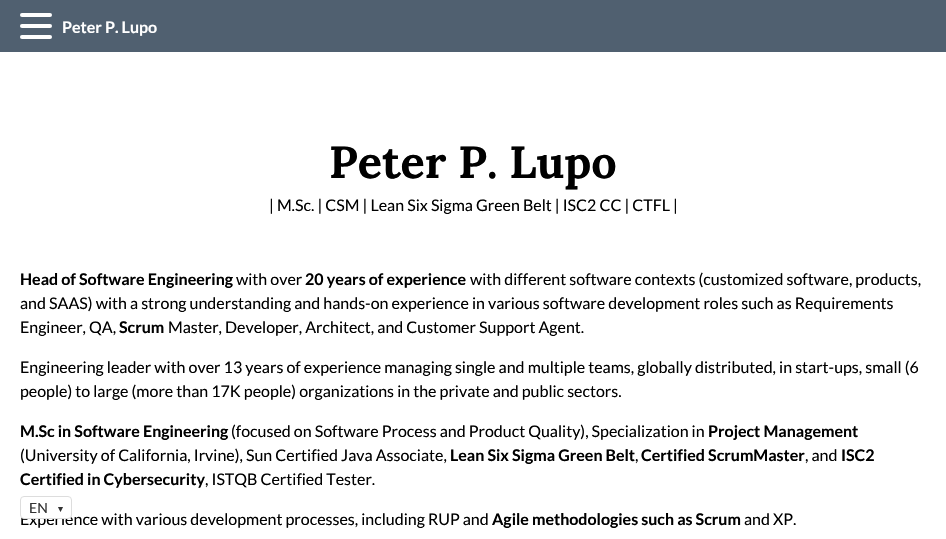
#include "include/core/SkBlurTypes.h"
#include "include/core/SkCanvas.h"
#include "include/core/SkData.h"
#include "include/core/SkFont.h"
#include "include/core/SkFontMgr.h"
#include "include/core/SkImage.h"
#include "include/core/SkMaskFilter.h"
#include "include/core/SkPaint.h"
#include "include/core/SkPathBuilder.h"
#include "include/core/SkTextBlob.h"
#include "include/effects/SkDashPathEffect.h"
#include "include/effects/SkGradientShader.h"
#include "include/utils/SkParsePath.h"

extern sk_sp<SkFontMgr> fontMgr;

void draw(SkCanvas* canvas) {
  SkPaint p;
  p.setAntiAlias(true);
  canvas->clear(SK_ColorWHITE);
  p.setColor(SkColorSetRGB(80, 96, 112));
  canvas->drawRect(SkRect::MakeLTRB(0, 0, 946, 52), p);
  p.setColor(SK_ColorWHITE);
  canvas->drawRoundRect(SkRect::MakeLTRB(20, 13, 52, 17), 2, 2, p);
  canvas->drawRoundRect(SkRect::MakeLTRB(20, 24, 52, 28), 2, 2, p);
  canvas->drawRoundRect(SkRect::MakeLTRB(20, 35, 52, 39), 2, 2, p);
  SkFont font1(fontMgr->matchFamilyStyle("Lato", SkFontStyle::Bold()), 16);
  font1.setSubpixel(true);
  canvas->drawString("Peter P. Lupo", 62, 33, font1, p);
  SkFont font2(fontMgr->matchFamilyStyle("Lora", SkFontStyle::Bold()), 45);
  font2.setSubpixel(true);
  p.setColor(SK_ColorBLACK);
  canvas->drawString("Peter P. Lupo", 329, 178, font2, p);
  SkFont font3(fontMgr->matchFamilyStyle("Lato", SkFontStyle::Normal()), 16);
  font3.setSubpixel(true);
  canvas->drawString("| M.Sc. | CSM | Lean Six Sigma Green Belt | ISC2 CC | CTFL |", 269, 211, font3, p);
  canvas->drawString("Head of Software Engineering", 20, 285, font1, p);
  canvas->drawString("with over", 236, 285, font3, p);
  canvas->drawString("20 years of experience", 305, 285, font1, p);
  canvas->drawString("with different software contexts (customized software, products,", 470, 285, font3, p);
  canvas->drawString("and SAAS) with a strong understanding and hands-on experience in various software development roles such as Requirements", 20, 309, font3, p);
  canvas->drawString("Engineer, QA,", 20, 333, font3, p);
  canvas->drawString("Scrum", 119, 333, font1, p);
  canvas->drawString("Master, Developer, Architect, and Customer Support Agent.", 168, 333, font3, p);
  canvas->drawString("Engineering leader with over 13 years of experience managing single and multiple teams, globally distributed, in start-ups, small (6", 20, 373, font3, p);
  canvas->drawString("people) to large (more than 17K people) organizations in the private and public sectors.", 20, 397, font3, p);
  canvas->drawString("M.Sc in Software Engineering", 20, 437, font1, p);
  canvas->drawString("(focused on Software Process and Product Quality), Specialization in", 231, 437, font3, p);
  canvas->drawString("Project Management", 708, 437, font1, p);
  canvas->drawString("(University of California, Irvine), Sun Certified Java Associate,", 20, 461, font3, p);
  canvas->drawString("Lean Six Sigma Green Belt", 450, 461, font1, p);
  canvas->drawString(",", 635, 461, font3, p);
  canvas->drawString("Certified ScrumMaster", 641, 461, font1, p);
  canvas->drawString(", and", 805, 461, font3, p);
  canvas->drawString("ISC2", 841, 461, font1, p);
  canvas->drawString("Certified in Cybersecurity", 20, 485, font1, p);
  canvas->drawString(", ISTQB Certified Tester.", 205, 485, font3, p);
  canvas->drawString("Experience with various development processes, including RUP and", 20, 525, font3, p);
  canvas->drawString("Agile methodologies such as Scrum", 492, 525, font1, p);
  canvas->drawString("and XP.", 744, 525, font3, p);
  p.setColor(SK_ColorWHITE);
  canvas->drawRoundRect(SkRect::MakeLTRB(20.5f, 496.5f, 71.5f, 518.5f), 3.5f, 3.5f, p);
  p.setStyle(SkPaint::kStroke_Style);
  p.setStrokeWidth(1);
  p.setColor(SkColorSetRGB(221, 221, 221));
  canvas->drawRoundRect(SkRect::MakeLTRB(20.5f, 496.5f, 71.5f, 518.5f), 3.5f, 3.5f, p);
  SkFont font4(fontMgr->matchFamilyStyle("Lato", SkFontStyle::Normal()), 14);
  font4.setSubpixel(true);
  p.setStyle(SkPaint::kFill_Style);
  p.setColor(SkColorSetRGB(51, 51, 51));
  canvas->drawString("EN", 29, 513, font4, p);
  SkFont font5(fontMgr->matchFamilyStyle("DejaVu Sans", SkFontStyle::Normal()), 10);
  font5.setSubpixel(true);
  canvas->drawString("▾", 58, 512, font5, p);
}
